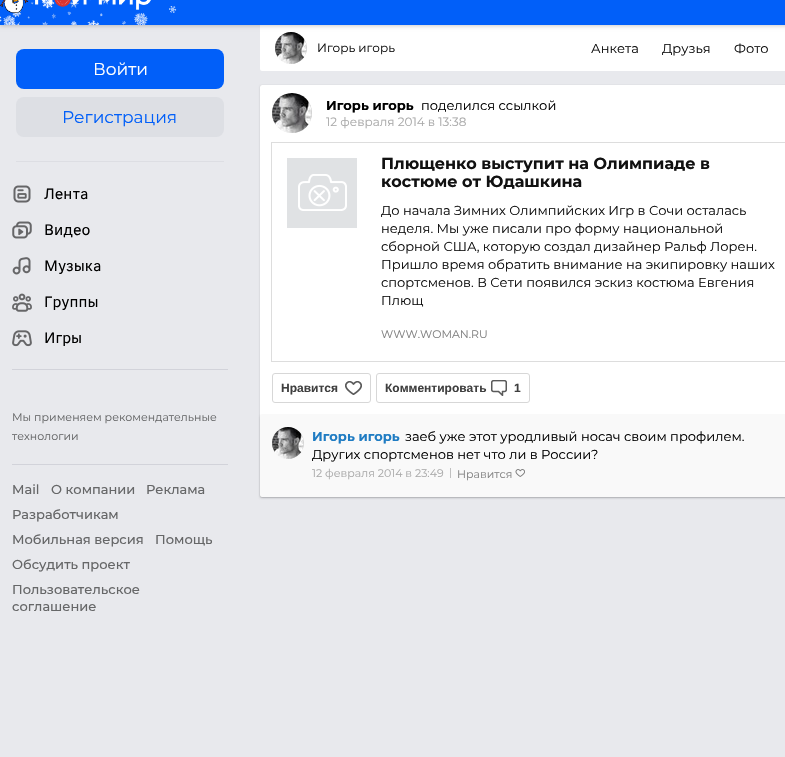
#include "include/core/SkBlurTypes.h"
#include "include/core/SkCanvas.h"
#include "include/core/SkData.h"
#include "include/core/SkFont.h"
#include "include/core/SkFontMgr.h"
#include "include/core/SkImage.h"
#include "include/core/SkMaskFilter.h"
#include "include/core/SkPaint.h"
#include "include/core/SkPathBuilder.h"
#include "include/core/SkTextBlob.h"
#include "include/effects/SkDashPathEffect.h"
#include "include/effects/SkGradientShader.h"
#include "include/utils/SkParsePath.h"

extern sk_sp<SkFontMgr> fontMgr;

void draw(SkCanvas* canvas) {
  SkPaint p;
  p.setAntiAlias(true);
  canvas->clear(SkColorSetRGB(232, 233, 237));
  p.setColor(SK_ColorWHITE);
  canvas->drawPath(SkPathBuilder().moveTo(260, 25).lineTo(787, 25).lineTo(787, 69).cubicTo(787, 70, 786, 71, 785, 71).lineTo(262, 71).cubicTo(261, 71, 260, 70, 260, 69).close().detach(), p);
  p.setColor(SkColorSetRGB(240, 240, 240));
  canvas->drawCircle(291, 48, 16, p);
  canvas->drawImageRect(SkImages::DeferredFromEncodedData(SkData::MakeFromFileName("images/8.png")), SkRect::MakeLTRB(275, 32, 307, 64), SkSamplingOptions());
  p.setColor(SkColorSetARGB(51, 0, 0, 0));
  p.setMaskFilter(SkMaskFilter::MakeBlur(kNormal_SkBlurStyle, 2));
  canvas->drawRect(SkRect::MakeLTRB(0, -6, 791, 26), p);
  p.setMaskFilter(nullptr);
  p.setColor(SkColorSetRGB(1, 95, 249));
  canvas->drawRect(SkRect::MakeLTRB(0, 0, 785, 25), p);
  canvas->drawImageRect(SkImages::DeferredFromEncodedData(SkData::MakeFromFileName("images/1.png")), SkRect::MakeLTRB(0, 0, 177, 25), SkSamplingOptions());
  canvas->drawImageRect(SkImages::DeferredFromEncodedData(SkData::MakeFromFileName("images/2.png")), SkRect::MakeLTRB(0, 0, 151, 13), SkSamplingOptions());
  canvas->drawRoundRect(SkRect::MakeLTRB(16, 49, 224, 89), 8, 8, p);
  p.setColor(SkColorSetRGB(221, 223, 228));
  canvas->drawRoundRect(SkRect::MakeLTRB(16, 97, 224, 137), 8, 8, p);
  p.setColor(SkColorSetRGB(221, 222, 227));
  canvas->drawRect(SkRect::MakeLTRB(16, 161, 224, 162), p);
  canvas->drawImageRect(SkImages::DeferredFromEncodedData(SkData::MakeFromFileName("images/3.png")), SkRect::MakeLTRB(13, 185, 31, 203), SkSamplingOptions());
  canvas->drawImageRect(SkImages::DeferredFromEncodedData(SkData::MakeFromFileName("images/4.png")), SkRect::MakeLTRB(12, 221, 32, 239), SkSamplingOptions());
  canvas->drawImageRect(SkImages::DeferredFromEncodedData(SkData::MakeFromFileName("images/5.png")), SkRect::MakeLTRB(12, 257, 31, 275), SkSamplingOptions());
  canvas->drawImageRect(SkImages::DeferredFromEncodedData(SkData::MakeFromFileName("images/6.png")), SkRect::MakeLTRB(12, 293, 32, 312), SkSamplingOptions());
  canvas->drawImageRect(SkImages::DeferredFromEncodedData(SkData::MakeFromFileName("images/7.png")), SkRect::MakeLTRB(12, 330, 32, 347), SkSamplingOptions());
  p.setColor(SkColorSetRGB(210, 211, 218));
  canvas->drawRect(SkRect::MakeLTRB(12, 369, 228, 370), p);
  canvas->drawRect(SkRect::MakeLTRB(12, 464, 228, 465), p);
  p.setColor(SkColorSetARGB(38, 0, 0, 0));
  p.setMaskFilter(SkMaskFilter::MakeBlur(kNormal_SkBlurStyle, 0.5f));
  canvas->drawRoundRect(SkRect::MakeLTRB(260, 85, 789, 497), 2, 2, p);
  p.setMaskFilter(nullptr);
  p.setColor(SkColorSetARGB(31, 0, 0, 0));
  p.setMaskFilter(SkMaskFilter::MakeBlur(kNormal_SkBlurStyle, 1));
  canvas->drawRoundRect(SkRect::MakeLTRB(260, 86, 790, 498), 2, 2, p);
  p.setMaskFilter(nullptr);
  p.setColor(SK_ColorWHITE);
  canvas->drawRoundRect(SkRect::MakeLTRB(260, 85, 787, 497), 2, 2, p);
  p.setColor(SkColorSetRGB(240, 240, 240));
  canvas->drawCircle(292, 113, 20, p);
  canvas->drawImageRect(SkImages::DeferredFromEncodedData(SkData::MakeFromFileName("images/9.png")), SkRect::MakeLTRB(272, 93, 312, 133), SkSamplingOptions());
  p.setStyle(SkPaint::kStroke_Style);
  p.setStrokeWidth(1);
  p.setColor(SkColorSetRGB(221, 221, 221));
  canvas->drawRect(SkRect::MakeLTRB(271.5f, 142.5f, 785.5f, 361.5f), p);
  canvas->drawImageRect(SkImages::DeferredFromEncodedData(SkData::MakeFromFileName("images/10.png")), SkRect::MakeLTRB(287, 158, 357, 228), SkSamplingOptions());
  p.setColor(SkColorSetRGB(215, 215, 215));
  canvas->drawRoundRect(SkRect::MakeLTRB(272.5f, 373.5f, 370.5f, 402.5f), 2.5f, 2.5f, p);
  canvas->drawImageRect(SkImages::DeferredFromEncodedData(SkData::MakeFromFileName("images/11.png")), SkRect::MakeLTRB(345, 381, 362, 395), SkSamplingOptions());
  canvas->drawRoundRect(SkRect::MakeLTRB(376.5f, 373.5f, 529.5f, 402.5f), 2.5f, 2.5f, p);
  canvas->drawImageRect(SkImages::DeferredFromEncodedData(SkData::MakeFromFileName("images/12.png")), SkRect::MakeLTRB(491, 380, 507, 396), SkSamplingOptions());
  p.setStyle(SkPaint::kFill_Style);
  p.setColor(SkColorSetARGB(31, 0, 0, 0));
  p.setMaskFilter(SkMaskFilter::MakeBlur(kNormal_SkBlurStyle, 1));
  canvas->drawRoundRect(SkRect::MakeLTRB(260, 416, 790, 498), 2, 2, p);
  p.setMaskFilter(nullptr);
  p.setColor(SkColorSetARGB(38, 0, 0, 0));
  p.setMaskFilter(SkMaskFilter::MakeBlur(kNormal_SkBlurStyle, 0.5f));
  canvas->drawRoundRect(SkRect::MakeLTRB(260, 415, 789, 497), 2, 2, p);
  p.setMaskFilter(nullptr);
  p.setColor(SkColorSetRGB(249, 249, 249));
  canvas->drawPath(SkPathBuilder().moveTo(260, 415).lineTo(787, 415).lineTo(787, 495).cubicTo(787, 496, 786, 497, 785, 497).lineTo(262, 497).cubicTo(261, 497, 260, 496, 260, 495).close().detach(), p);
  p.setColor(SkColorSetRGB(240, 240, 240));
  canvas->drawCircle(288, 443, 16, p);
  canvas->drawImageRect(SkImages::DeferredFromEncodedData(SkData::MakeFromFileName("images/13.png")), SkRect::MakeLTRB(272, 427, 304, 459), SkSamplingOptions());
  p.setColor(SkColorSetRGB(193, 193, 193));
  canvas->drawRect(SkRect::MakeLTRB(450, 468, 451, 478), p);
  canvas->drawImageRect(SkImages::DeferredFromEncodedData(SkData::MakeFromFileName("images/14.png")), SkRect::MakeLTRB(515, 469, 525, 477), SkSamplingOptions());
  SkFont font1(fontMgr->matchFamilyStyle("Montserrat", SkFontStyle::Normal()), 17);
  font1.setSubpixel(true);
  p.setColor(SK_ColorWHITE);
  canvas->drawString("Войти", 93, 75, font1, p);
  p.setColor(SkColorSetRGB(1, 95, 249));
  canvas->drawString("Регистрация", 62, 123, font1, p);
  SkFont font2(fontMgr->matchFamilyStyle("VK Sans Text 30", SkFontStyle::Normal()), 15);
  font2.setSubpixel(true);
  p.setColor(SK_ColorBLACK);
  canvas->drawString("Лента", 44, 199, font2, p);
  canvas->drawString("Видео", 44, 235, font2, p);
  canvas->drawString("Музыка", 44, 271, font2, p);
  canvas->drawString("Группы", 44, 307, font2, p);
  canvas->drawString("Игры", 44, 343, font2, p);
  SkFont font3(fontMgr->matchFamilyStyle("Montserrat", SkFontStyle::Normal()), 11);
  font3.setSubpixel(true);
  p.setColor(SkColorSetRGB(102, 103, 104));
  canvas->drawString("Мы применяем рекомендательные", 12, 421, font3, p);
  canvas->drawString("технологии", 12, 440, font3, p);
  SkFont font4(fontMgr->matchFamilyStyle("Montserrat", SkFontStyle(500, SkFontStyle::kNormal_Width, SkFontStyle::kUpright_Slant)), 13);
  font4.setSubpixel(true);
  canvas->drawString("Mail", 12, 494, font4, p);
  canvas->drawString("О компании", 51, 494, font4, p);
  canvas->drawString("Реклама", 146, 494, font4, p);
  canvas->drawString("Разработчикам", 12, 519, font4, p);
  canvas->drawString("Мобильная версия", 12, 544, font4, p);
  canvas->drawString("Помощь", 155, 544, font4, p);
  canvas->drawString("Обсудить проект", 12, 569, font4, p);
  canvas->drawString("Пользовательское", 12, 594, font4, p);
  canvas->drawString("соглашение", 12, 611, font4, p);
  SkFont font5(fontMgr->matchFamilyStyle("Montserrat", SkFontStyle::Normal()), 12);
  font5.setSubpixel(true);
  p.setColor(SkColorSetRGB(17, 17, 17));
  canvas->drawString("Игорь игорь", 317, 52, font5, p);
  SkFont font6(fontMgr->matchFamilyStyle("Montserrat", SkFontStyle::Normal()), 13);
  font6.setSubpixel(true);
  canvas->drawString("Анкета", 591, 53, font6, p);
  canvas->drawString("Друзья", 662, 53, font6, p);
  canvas->drawString("Фото", 734, 53, font6, p);
  SkFont font7(fontMgr->matchFamilyStyle("Montserrat", SkFontStyle::Bold()), 13);
  font7.setSubpixel(true);
  p.setColor(SK_ColorBLACK);
  canvas->drawString("Игорь игорь", 326, 110, font7, p);
  canvas->drawString("поделился ссылкой", 421, 110, font6, p);
  p.setColor(SkColorSetRGB(169, 169, 169));
  canvas->drawString("12 февраля 2014 в 13:38", 326, 126, font5, p);
  SkFont font8(fontMgr->matchFamilyStyle("Montserrat", SkFontStyle::Bold()), 16);
  font8.setSubpixel(true);
  p.setColor(SkColorSetRGB(17, 17, 17));
  canvas->drawString("Плющенко выступит на Олимпиаде в", 381, 169, font8, p);
  canvas->drawString("костюме от Юдашкина", 381, 187, font8, p);
  canvas->drawString("До начала Зимних Олимпийских Игр в Сочи осталась", 381, 215, font6, p);
  canvas->drawString("неделя. Мы уже писали про форму национальной", 381, 233, font6, p);
  canvas->drawString("сборной США, которую создал дизайнер Ральф Лорен.", 381, 251, font6, p);
  canvas->drawString("Пришло время обратить внимание на экипировку наших", 381, 269, font6, p);
  canvas->drawString("спортсменов. В Сети появился эскиз костюма Евгения", 381, 287, font6, p);
  canvas->drawString("Плющ", 381, 305, font6, p);
  p.setColor(SkColorSetRGB(129, 129, 129));
  canvas->drawString("WWW.WOMAN.RU", 381, 338, font3, p);
  SkFont font9(fontMgr->matchFamilyStyle("Liberation Sans", SkFontStyle::Bold()), 12);
  font9.setSubpixel(true);
  p.setColor(SkColorSetRGB(63, 63, 63));
  canvas->drawString("Нравится", 281, 392, font9, p);
  canvas->drawString("Комментировать", 385, 392, font9, p);
  canvas->drawString("1", 514, 392, font9, p);
  p.setColor(SK_ColorBLACK);
  canvas->drawString("заеб уже этот уродливый носач своим профилем.", 405, 441, font6, p);
  canvas->drawString("Других спортсменов нет что ли в России?", 312, 459, font6, p);
  p.setColor(SkColorSetRGB(31, 124, 195));
  canvas->drawString("Игорь игорь", 312, 441, font7, p);
  p.setColor(SkColorSetRGB(169, 169, 169));
  canvas->drawString("12 февраля 2014 в 23:49", 312, 477, font3, p);
  p.setColor(SkColorSetRGB(129, 129, 129));
  canvas->drawString("Нравится", 457, 478, font3, p);
}
